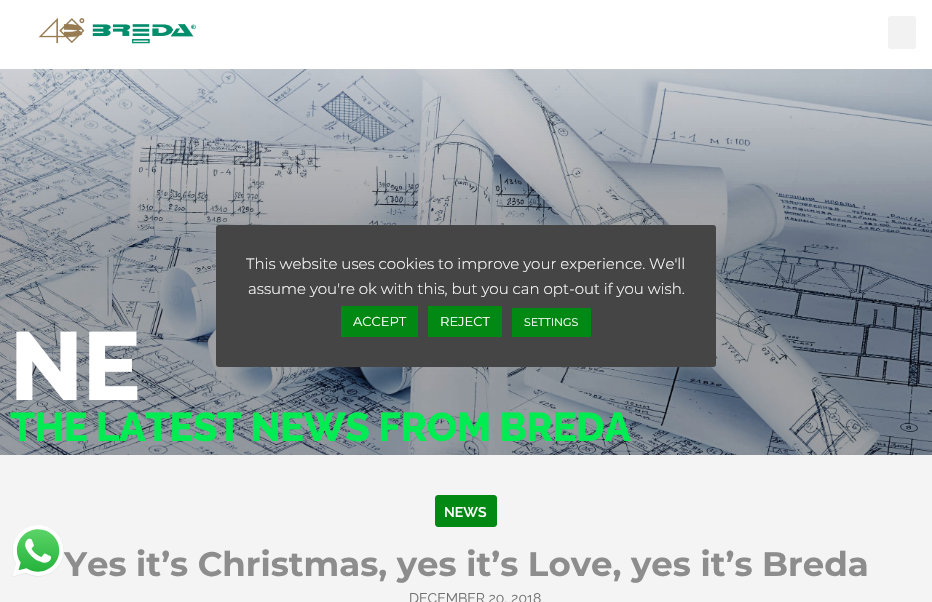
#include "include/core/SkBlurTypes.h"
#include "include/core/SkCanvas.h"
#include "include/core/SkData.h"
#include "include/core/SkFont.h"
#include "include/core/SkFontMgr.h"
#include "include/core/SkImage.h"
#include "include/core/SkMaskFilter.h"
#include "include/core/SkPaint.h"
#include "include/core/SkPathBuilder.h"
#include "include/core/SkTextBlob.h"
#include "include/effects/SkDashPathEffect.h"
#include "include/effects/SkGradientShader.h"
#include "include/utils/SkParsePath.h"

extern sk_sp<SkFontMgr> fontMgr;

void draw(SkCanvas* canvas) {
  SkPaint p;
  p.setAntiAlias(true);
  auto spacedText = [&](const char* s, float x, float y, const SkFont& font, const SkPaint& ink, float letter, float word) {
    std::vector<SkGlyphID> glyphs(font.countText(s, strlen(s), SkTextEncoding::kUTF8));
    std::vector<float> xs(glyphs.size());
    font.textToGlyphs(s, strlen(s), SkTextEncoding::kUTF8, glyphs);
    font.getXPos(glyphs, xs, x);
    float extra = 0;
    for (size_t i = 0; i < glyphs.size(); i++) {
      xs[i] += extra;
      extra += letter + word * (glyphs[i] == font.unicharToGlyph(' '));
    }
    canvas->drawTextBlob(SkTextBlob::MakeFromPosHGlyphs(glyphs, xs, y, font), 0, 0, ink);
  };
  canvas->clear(SK_ColorWHITE);
  canvas->drawImageRect(SkImages::DeferredFromEncodedData(SkData::MakeFromFileName("images/1.png")), SkRect::MakeLTRB(38, 18, 196, 44), SkSamplingOptions());
  p.setColor(SkColorSetRGB(242, 242, 242));
  canvas->drawRoundRect(SkRect::MakeLTRB(888, 16, 916, 49), 3, 3, p);
  canvas->drawImageRect(SkImages::DeferredFromEncodedData(SkData::MakeFromFileName("images/2.png")), SkRect::MakeLTRB(0, 69, 932, 455), SkSamplingOptions());
  p.setColor(SkColorSetARGB(77, 172, 171, 171));
  p.setMaskFilter(SkMaskFilter::MakeBlur(kNormal_SkBlurStyle, 5));
  canvas->drawRoundRect(SkRect::MakeLTRB(216, 224, 716, 366), 3, 3, p);
  p.setMaskFilter(nullptr);
  p.setColor(SkColorSetRGB(69, 69, 69));
  canvas->drawRoundRect(SkRect::MakeLTRB(216, 225, 716, 367), 3, 3, p);
  p.setColor(SkColorSetRGB(2, 137, 20));
  canvas->drawRect(SkRect::MakeLTRB(341, 306, 418, 337), p);
  canvas->drawRect(SkRect::MakeLTRB(428, 306, 502, 337), p);
  canvas->drawRect(SkRect::MakeLTRB(512, 308, 591, 337), p);
  p.setColor(SkColorSetRGB(244, 244, 244));
  canvas->drawRect(SkRect::MakeLTRB(0, 455, 932, 602), p);
  p.setColor(SkColorSetRGB(2, 137, 20));
  canvas->drawRoundRect(SkRect::MakeLTRB(435.5f, 495.5f, 496.5f, 526.5f), 2.5f, 2.5f, p);
  p.setStyle(SkPaint::kStroke_Style);
  p.setStrokeWidth(1);
  canvas->drawRoundRect(SkRect::MakeLTRB(435.5f, 495.5f, 496.5f, 526.5f), 2.5f, 2.5f, p);
  SkFont font1(fontMgr->matchFamilyStyle("Montserrat", SkFontStyle(300, SkFontStyle::kNormal_Width, SkFontStyle::kUpright_Slant)), 15);
  font1.setSubpixel(true);
  p.setStyle(SkPaint::kFill_Style);
  p.setColor(SK_ColorWHITE);
  canvas->drawString("This website uses cookies to improve your experience. We'll", 246, 269, font1, p);
  canvas->drawString("assume you're ok with this, but you can opt-out if you wish.", 248, 294, font1, p);
  SkFont font2(fontMgr->matchFamilyStyle("Montserrat", SkFontStyle::Normal()), 13);
  font2.setSubpixel(true);
  canvas->drawString("ACCEPT", 353, 326, font2, p);
  canvas->drawString("REJECT", 440, 326, font2, p);
  SkFont font3(fontMgr->matchFamilyStyle("Montserrat", SkFontStyle::Normal()), 11);
  font3.setSubpixel(true);
  canvas->drawString("SETTINGS", 524, 326, font3, p);
  SkFont font4(fontMgr->matchFamilyStyle("Raleway", SkFontStyle(800, SkFontStyle::kNormal_Width, SkFontStyle::kUpright_Slant)), 96);
  font4.setSubpixel(true);
  canvas->drawString("NE", 10, 400, font4, p);
  SkFont font5(fontMgr->matchFamilyStyle("Raleway", SkFontStyle(800, SkFontStyle::kNormal_Width, SkFontStyle::kUpright_Slant)), 40);
  font5.setSubpixel(true);
  p.setColor(SkColorSetRGB(0, 236, 82));
  spacedText("THE LATEST NEWS FROM BREDA", 10, 441, font5, p, -0.5f, 0);
  SkFont font6(fontMgr->matchFamilyStyle("Raleway", SkFontStyle(600, SkFontStyle::kNormal_Width, SkFontStyle::kUpright_Slant)), 14);
  font6.setSubpixel(true);
  p.setColor(SK_ColorWHITE);
  canvas->drawString("NEWS", 444, 517, font6, p);
  SkFont font7(fontMgr->matchFamilyStyle("Montserrat", SkFontStyle::Bold()), 34);
  font7.setSubpixel(true);
  p.setColor(SkColorSetRGB(141, 141, 141));
  canvas->drawString("Yes it’s Christmas, yes it’s Love, yes it’s Breda", 64, 576, font7, p);
  SkFont font8(fontMgr->matchFamilyStyle("Raleway", SkFontStyle::Normal()), 14);
  font8.setSubpixel(true);
  p.setColor(SkColorSetRGB(113, 113, 113));
  canvas->drawString("DECEMBER 20, 2018", 409, 603, font8, p);
  canvas->drawImageRect(SkImages::DeferredFromEncodedData(SkData::MakeFromFileName("images/3.png")), SkRect::MakeLTRB(12, 525, 64, 577), SkSamplingOptions());
}
